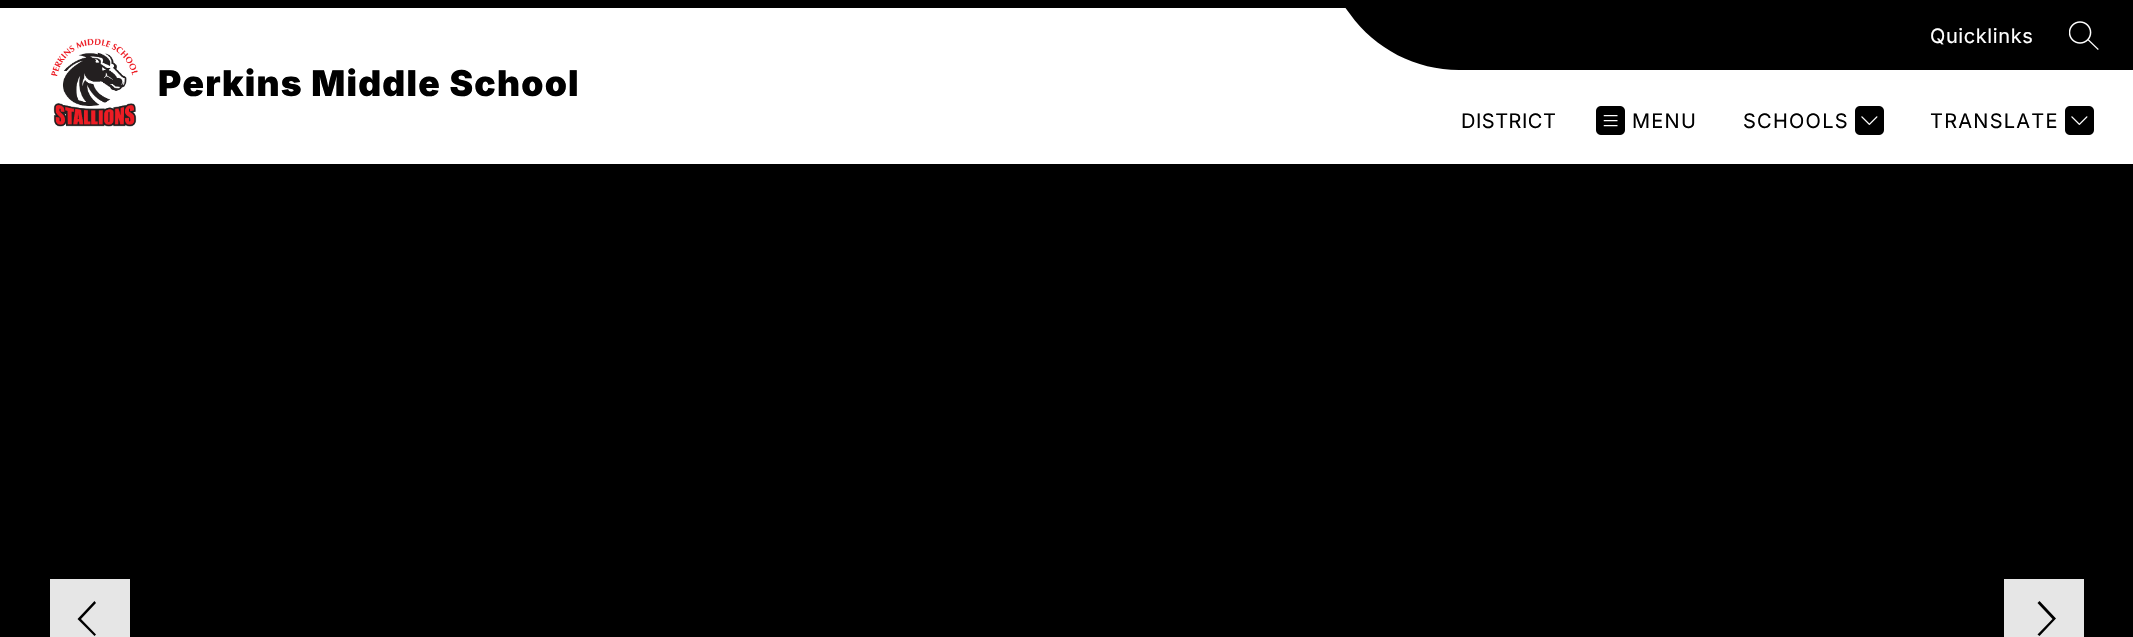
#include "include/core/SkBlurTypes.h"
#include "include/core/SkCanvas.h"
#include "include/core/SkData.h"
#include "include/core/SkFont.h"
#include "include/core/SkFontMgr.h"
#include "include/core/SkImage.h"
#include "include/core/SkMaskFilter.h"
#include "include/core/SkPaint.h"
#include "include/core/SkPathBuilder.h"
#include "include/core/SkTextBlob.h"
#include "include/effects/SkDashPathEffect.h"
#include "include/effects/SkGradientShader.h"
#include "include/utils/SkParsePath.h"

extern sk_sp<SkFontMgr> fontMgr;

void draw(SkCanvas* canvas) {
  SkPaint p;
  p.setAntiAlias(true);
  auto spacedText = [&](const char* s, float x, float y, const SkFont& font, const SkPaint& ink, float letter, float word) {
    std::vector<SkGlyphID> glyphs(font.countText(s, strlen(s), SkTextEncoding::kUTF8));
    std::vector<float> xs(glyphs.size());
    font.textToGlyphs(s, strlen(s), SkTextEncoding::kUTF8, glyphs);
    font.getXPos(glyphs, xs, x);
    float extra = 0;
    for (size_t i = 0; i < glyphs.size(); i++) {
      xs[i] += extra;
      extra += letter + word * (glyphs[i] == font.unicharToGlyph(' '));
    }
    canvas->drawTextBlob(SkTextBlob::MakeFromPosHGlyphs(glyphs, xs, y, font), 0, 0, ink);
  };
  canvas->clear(SK_ColorBLACK);
  p.setColor(SK_ColorWHITE);
  canvas->drawRect(SkRect::MakeLTRB(0, 8, 2133, 164), p);
  canvas->drawImageRect(SkImages::DeferredFromEncodedData(SkData::MakeFromFileName("images/1.png")), SkRect::MakeLTRB(51, 38, 138, 127), SkSamplingOptions());
  p.setColor(SK_ColorBLACK);
  canvas->drawRect(SkRect::MakeLTRB(1462, 8, 2133, 70), p);
  canvas->drawPath(SkPathBuilder().moveTo(1459, 70).lineTo(1462, 70).lineTo(1462, 0).lineTo(1343, 0).cubicTo(1341, 0, 1341, 1, 1341, 2).lineTo(1350, 14).cubicTo(1375, 49, 1416, 70, 1459, 70).close().detach(), p);
  canvas->drawImageRect(SkImages::DeferredFromEncodedData(SkData::MakeFromFileName("images/2.png")), SkRect::MakeLTRB(2069, 21, 2099, 50), SkSamplingOptions());
  canvas->drawImageRect(SkImages::DeferredFromEncodedData(SkData::MakeFromFileName("images/3.png")), SkRect::MakeLTRB(1596, 106, 1625, 135), SkSamplingOptions());
  canvas->drawImageRect(SkImages::DeferredFromEncodedData(SkData::MakeFromFileName("images/4.png")), SkRect::MakeLTRB(1855, 106, 1884, 135), SkSamplingOptions());
  canvas->drawImageRect(SkImages::DeferredFromEncodedData(SkData::MakeFromFileName("images/4.png")), SkRect::MakeLTRB(2065, 106, 2094, 135), SkSamplingOptions());
  p.setColor(SkColorSetRGB(230, 230, 230));
  canvas->drawRect(SkRect::MakeLTRB(50, 579, 130, 637), p);
  p.setColor(SK_ColorBLACK);
  canvas->drawPath(SkPathBuilder(SkPathFillType::kEvenOdd).moveTo(81, 619).lineTo(96, 603).lineTo(94.5f, 601).lineTo(77.5f, 619).lineTo(94.5f, 636).lineTo(96, 634.5f).close().detach(), p);
  p.setColor(SkColorSetRGB(230, 230, 230));
  canvas->drawRect(SkRect::MakeLTRB(2004, 579, 2084, 637), p);
  p.setColor(SK_ColorBLACK);
  canvas->drawPath(SkPathBuilder(SkPathFillType::kEvenOdd).moveTo(2052.5f, 619).lineTo(2037.5f, 634.5f).lineTo(2039.5f, 636).lineTo(2056, 618.5f).lineTo(2039.5f, 601).lineTo(2037.5f, 603).close().detach(), p);
  SkFont font1(fontMgr->matchFamilyStyle("Inter", SkFontStyle(900, SkFontStyle::kNormal_Width, SkFontStyle::kUpright_Slant)), 35.5f);
  font1.setSubpixel(true);
  spacedText("Perkins Middle School", 158, 96, font1, p, 1.25f, 0);
  SkFont font2(fontMgr->matchFamilyStyle("Inter", SkFontStyle::Normal()), 20);
  font2.setSubpixel(true);
  p.setColor(SK_ColorWHITE);
  spacedText("Quicklinks", 1930, 43, font2, p, 0.6f, 0);
  p.setColor(SK_ColorBLACK);
  spacedText("DISTRICT", 1461, 128, font2, p, 0.5f, 0);
  spacedText("MENU", 1632, 128, font2, p, 1.25f, 0);
  spacedText("SCHOOLS", 1743, 128, font2, p, 1.25f, 0);
  spacedText("TRANSLATE", 1930, 128, font2, p, 1.25f, 0);
}
